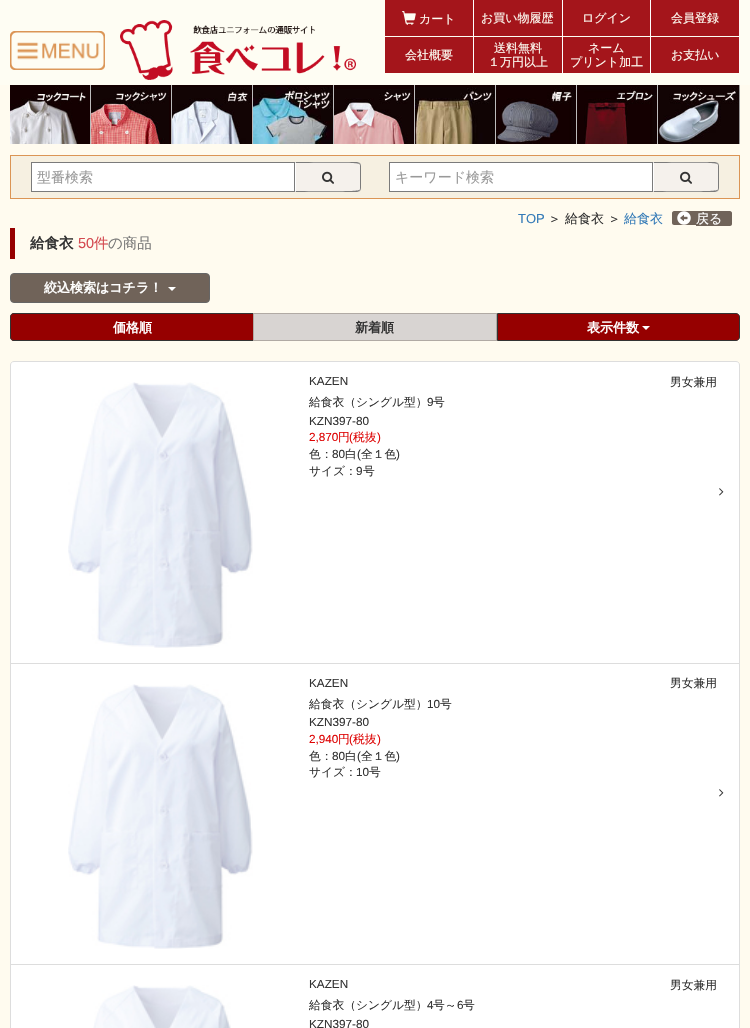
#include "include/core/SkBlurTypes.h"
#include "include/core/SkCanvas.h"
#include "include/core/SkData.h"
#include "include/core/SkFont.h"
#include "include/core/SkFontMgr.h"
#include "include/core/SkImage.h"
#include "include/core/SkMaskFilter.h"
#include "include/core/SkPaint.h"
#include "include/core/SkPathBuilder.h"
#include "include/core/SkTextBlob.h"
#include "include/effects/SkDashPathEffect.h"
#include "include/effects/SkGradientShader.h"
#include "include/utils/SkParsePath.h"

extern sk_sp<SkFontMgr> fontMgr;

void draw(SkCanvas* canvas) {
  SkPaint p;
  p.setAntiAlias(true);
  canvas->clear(SkColorSetRGB(255, 251, 239));
  p.setColor(SkColorSetRGB(188, 188, 188));
  canvas->drawRect(SkRect::MakeLTRB(90, 84, 91, 144), p);
  canvas->drawRect(SkRect::MakeLTRB(171, 84, 172, 144), p);
  canvas->drawRect(SkRect::MakeLTRB(252, 84, 253, 144), p);
  canvas->drawRect(SkRect::MakeLTRB(333, 84, 334, 144), p);
  canvas->drawRect(SkRect::MakeLTRB(414, 84, 415, 144), p);
  canvas->drawRect(SkRect::MakeLTRB(495, 84, 496, 144), p);
  canvas->drawRect(SkRect::MakeLTRB(576, 84, 577, 144), p);
  canvas->drawRect(SkRect::MakeLTRB(657, 84, 658, 144), p);
  p.setColor(SkColorSetRGB(153, 153, 153));
  canvas->drawRect(SkRect::MakeLTRB(739, 84, 740, 144), p);
  p.setColor(SkColorSetRGB(254, 253, 243));
  canvas->drawRect(SkRect::MakeLTRB(0, 0, 750, 85), p);
  canvas->drawImageRect(SkImages::DeferredFromEncodedData(SkData::MakeFromFileName("images/1.png")), SkRect::MakeLTRB(10, 31, 105, 70), SkSamplingOptions());
  canvas->drawImageRect(SkImages::DeferredFromEncodedData(SkData::MakeFromFileName("images/2.png")), SkRect::MakeLTRB(120, 20, 356, 80), SkSamplingOptions());
  p.setColor(SkColorSetRGB(164, 21, 27));
  canvas->drawRect(SkRect::MakeLTRB(385, 0, 473, 36), p);
  p.setColor(SK_ColorWHITE);
  canvas->drawRect(SkRect::MakeLTRB(473, 0, 474, 36), p);
  canvas->drawImageRect(SkImages::DeferredFromEncodedData(SkData::MakeFromFileName("images/3.png")), SkRect::MakeLTRB(402, 11, 416, 25), SkSamplingOptions());
  p.setColor(SkColorSetRGB(164, 21, 27));
  canvas->drawRect(SkRect::MakeLTRB(474, 0, 562, 36), p);
  p.setColor(SK_ColorWHITE);
  canvas->drawRect(SkRect::MakeLTRB(562, 0, 563, 36), p);
  p.setColor(SkColorSetRGB(164, 21, 27));
  canvas->drawRect(SkRect::MakeLTRB(563, 0, 650, 36), p);
  p.setColor(SK_ColorWHITE);
  canvas->drawRect(SkRect::MakeLTRB(650, 0, 651, 36), p);
  p.setColor(SkColorSetRGB(164, 21, 27));
  canvas->drawRect(SkRect::MakeLTRB(651, 0, 739, 36), p);
  p.setColor(SK_ColorWHITE);
  canvas->drawRect(SkRect::MakeLTRB(739, 0, 740, 36), p);
  p.setColor(SkColorSetRGB(164, 21, 27));
  canvas->drawRect(SkRect::MakeLTRB(385, 37, 473, 73), p);
  p.setColor(SK_ColorWHITE);
  canvas->drawRect(SkRect::MakeLTRB(473, 37, 474, 73), p);
  p.setColor(SkColorSetRGB(164, 21, 27));
  canvas->drawRect(SkRect::MakeLTRB(474, 37, 562, 73), p);
  p.setColor(SK_ColorWHITE);
  canvas->drawRect(SkRect::MakeLTRB(562, 37, 563, 73), p);
  p.setColor(SkColorSetRGB(164, 21, 27));
  canvas->drawRect(SkRect::MakeLTRB(563, 37, 650, 73), p);
  p.setColor(SK_ColorWHITE);
  canvas->drawRect(SkRect::MakeLTRB(650, 37, 651, 73), p);
  p.setColor(SkColorSetRGB(164, 21, 27));
  canvas->drawRect(SkRect::MakeLTRB(651, 37, 739, 73), p);
  p.setColor(SK_ColorWHITE);
  canvas->drawRect(SkRect::MakeLTRB(739, 37, 740, 73), p);
  p.setColor(SkColorSetRGB(20, 0, 1));
  canvas->drawRect(SkRect::MakeLTRB(10, 85, 90, 144), p);
  canvas->drawImageRect(SkImages::DeferredFromEncodedData(SkData::MakeFromFileName("images/4.png")), SkRect::MakeLTRB(10, 87, 86, 144), SkSamplingOptions());
  canvas->drawRect(SkRect::MakeLTRB(91, 85, 171, 144), p);
  canvas->drawImageRect(SkImages::DeferredFromEncodedData(SkData::MakeFromFileName("images/5.png")), SkRect::MakeLTRB(91, 87, 169, 144), SkSamplingOptions());
  canvas->drawRect(SkRect::MakeLTRB(172, 85, 252, 144), p);
  canvas->drawImageRect(SkImages::DeferredFromEncodedData(SkData::MakeFromFileName("images/6.png")), SkRect::MakeLTRB(172, 87, 251, 144), SkSamplingOptions());
  canvas->drawRect(SkRect::MakeLTRB(253, 85, 333, 87), p);
  canvas->drawImageRect(SkImages::DeferredFromEncodedData(SkData::MakeFromFileName("images/7.png")), SkRect::MakeLTRB(253, 87, 333, 144), SkSamplingOptions());
  canvas->drawRect(SkRect::MakeLTRB(334, 85, 414, 144), p);
  canvas->drawImageRect(SkImages::DeferredFromEncodedData(SkData::MakeFromFileName("images/8.png")), SkRect::MakeLTRB(334, 89, 413, 144), SkSamplingOptions());
  canvas->drawRect(SkRect::MakeLTRB(415, 85, 495, 87), p);
  canvas->drawImageRect(SkImages::DeferredFromEncodedData(SkData::MakeFromFileName("images/9.png")), SkRect::MakeLTRB(415, 87, 495, 144), SkSamplingOptions());
  canvas->drawRect(SkRect::MakeLTRB(496, 85, 576, 144), p);
  canvas->drawImageRect(SkImages::DeferredFromEncodedData(SkData::MakeFromFileName("images/10.png")), SkRect::MakeLTRB(496, 87, 575, 144), SkSamplingOptions());
  canvas->drawRect(SkRect::MakeLTRB(577, 85, 657, 144), p);
  canvas->drawImageRect(SkImages::DeferredFromEncodedData(SkData::MakeFromFileName("images/11.png")), SkRect::MakeLTRB(584, 87, 656, 144), SkSamplingOptions());
  canvas->drawRect(SkRect::MakeLTRB(658, 85, 739, 87), p);
  canvas->drawImageRect(SkImages::DeferredFromEncodedData(SkData::MakeFromFileName("images/12.png")), SkRect::MakeLTRB(658, 87, 739, 144), SkSamplingOptions());
  p.setColor(SkColorSetRGB(246, 240, 225));
  canvas->drawRect(SkRect::MakeLTRB(10.5f, 155.5f, 739.5f, 198.5f), p);
  p.setStyle(SkPaint::kStroke_Style);
  p.setStrokeWidth(1);
  p.setColor(SkColorSetRGB(219, 149, 85));
  canvas->drawRect(SkRect::MakeLTRB(10.5f, 155.5f, 739.5f, 198.5f), p);
  p.setStyle(SkPaint::kFill_Style);
  p.setColor(SK_ColorWHITE);
  canvas->drawRect(SkRect::MakeLTRB(31.5f, 162.5f, 294.5f, 191.5f), p);
  p.setStyle(SkPaint::kStroke_Style);
  p.setColor(SkColorSetRGB(123, 123, 123));
  canvas->drawRect(SkRect::MakeLTRB(31.5f, 162.5f, 294.5f, 191.5f), p);
  p.setStyle(SkPaint::kFill_Style);
  p.setColor(SkColorSetRGB(245, 241, 236));
  canvas->drawPath(SkPathBuilder().moveTo(295, 162).lineTo(357, 162).cubicTo(359, 162, 361, 164, 361, 166).lineTo(361, 188).cubicTo(361, 190, 359, 192, 357, 192).lineTo(295, 192).close().detach(), p);
  p.setColor(SkColorSetRGB(123, 123, 123));
  canvas->drawPath(SkPathBuilder().moveTo(295, 162).lineTo(296, 163).cubicTo(303, 163, 358, 162, 359, 164).lineTo(360, 163).lineTo(357, 162).close().detach(), p);
  canvas->drawPath(SkPathBuilder().moveTo(361, 188).lineTo(361, 166).cubicTo(361, 165, 360.5f, 164, 360, 163).lineTo(359, 164).cubicTo(360, 164, 360, 165, 360, 166).lineTo(360, 188).cubicTo(360, 189, 360, 190, 359, 190).lineTo(360, 191).cubicTo(360.5f, 190, 361, 189, 361, 188).close().detach(), p);
  canvas->drawPath(SkPathBuilder().moveTo(357, 192).lineTo(360, 191).lineTo(359, 190).cubicTo(358, 192, 303, 191, 296, 191).lineTo(295, 192).close().detach(), p);
  p.setColor(SK_ColorWHITE);
  canvas->drawPath(SkPathBuilder().moveTo(295, 162).lineTo(295, 192).lineTo(296, 191).lineTo(296, 163).close().detach(), p);
  canvas->drawImageRect(SkImages::DeferredFromEncodedData(SkData::MakeFromFileName("images/13.png")), SkRect::MakeLTRB(322, 171, 334, 184), SkSamplingOptions());
  canvas->drawRect(SkRect::MakeLTRB(389.5f, 162.5f, 652.5f, 191.5f), p);
  p.setStyle(SkPaint::kStroke_Style);
  p.setColor(SkColorSetRGB(123, 123, 123));
  canvas->drawRect(SkRect::MakeLTRB(389.5f, 162.5f, 652.5f, 191.5f), p);
  p.setStyle(SkPaint::kFill_Style);
  p.setColor(SkColorSetRGB(245, 241, 236));
  canvas->drawPath(SkPathBuilder().moveTo(653, 162).lineTo(715, 162).cubicTo(717, 162, 719, 164, 719, 166).lineTo(719, 188).cubicTo(719, 190, 717, 192, 715, 192).lineTo(653, 192).close().detach(), p);
  p.setColor(SkColorSetRGB(123, 123, 123));
  canvas->drawPath(SkPathBuilder().moveTo(653, 162).lineTo(654, 163).cubicTo(661, 163, 716, 162, 717, 164).lineTo(718, 163).lineTo(715, 162).close().detach(), p);
  canvas->drawPath(SkPathBuilder().moveTo(719, 188).lineTo(719, 166).cubicTo(719, 165, 718.5f, 164, 718, 163).lineTo(717, 164).cubicTo(718, 164, 718, 165, 718, 166).lineTo(718, 188).cubicTo(718, 189, 718, 190, 717, 190).lineTo(718, 191).cubicTo(718.5f, 190, 719, 189, 719, 188).close().detach(), p);
  canvas->drawPath(SkPathBuilder().moveTo(715, 192).lineTo(718, 191).lineTo(717, 190).cubicTo(716, 192, 661, 191, 654, 191).lineTo(653, 192).close().detach(), p);
  p.setColor(SK_ColorWHITE);
  canvas->drawPath(SkPathBuilder().moveTo(653, 162).lineTo(653, 192).lineTo(654, 191).lineTo(654, 163).close().detach(), p);
  canvas->drawImageRect(SkImages::DeferredFromEncodedData(SkData::MakeFromFileName("images/13.png")), SkRect::MakeLTRB(680, 171, 692, 184), SkSamplingOptions());
  p.setColor(SkColorSetRGB(112, 99, 89));
  canvas->drawPath(SkPathBuilder().moveTo(674, 211).lineTo(696, 211).lineTo(696, 225).lineTo(674, 225).cubicTo(673, 225, 672, 224, 672, 223).lineTo(672, 213).cubicTo(672, 212, 673, 211, 674, 211).close().detach(), p);
  canvas->drawPath(SkPathBuilder().moveTo(696, 211).lineTo(730, 211).cubicTo(731, 211, 732, 212, 732, 213).lineTo(732, 224).cubicTo(732, 225, 731, 226, 730, 226).lineTo(696, 226).close().detach(), p);
  canvas->drawImageRect(SkImages::DeferredFromEncodedData(SkData::MakeFromFileName("images/14.png")), SkRect::MakeLTRB(677, 211, 691, 225), SkSamplingOptions());
  p.setColor(SkColorSetRGB(150, 0, 0));
  canvas->drawRect(SkRect::MakeLTRB(10, 228, 15, 259), p);
  p.setColor(SkColorSetRGB(112, 99, 89));
  canvas->drawRoundRect(SkRect::MakeLTRB(10.5f, 273.5f, 209.5f, 302.5f), 3.5f, 3.5f, p);
  p.setStyle(SkPaint::kStroke_Style);
  p.setColor(SkColorSetRGB(102, 102, 102));
  canvas->drawRoundRect(SkRect::MakeLTRB(10.5f, 273.5f, 209.5f, 302.5f), 3.5f, 3.5f, p);
  p.setStyle(SkPaint::kFill_Style);
  p.setColor(SK_ColorWHITE);
  canvas->drawPath(SkPathBuilder().moveTo(168, 287).lineTo(176, 287).lineTo(172, 291).close().detach(), p);
  p.setColor(SkColorSetRGB(150, 0, 0));
  canvas->drawPath(SkPathBuilder().moveTo(14, 313).lineTo(253, 313).lineTo(253, 341).lineTo(14, 341).cubicTo(12, 341, 10, 339, 10, 337).lineTo(10, 317).cubicTo(10, 315, 12, 313, 14, 313).close().detach(), p);
  p.setColor(SkColorSetRGB(51, 51, 51));
  canvas->drawPath(SkPathBuilder(SkPathFillType::kEvenOdd).moveTo(14, 313).lineTo(253, 313).lineTo(253, 341).lineTo(14, 341).cubicTo(12, 341, 10, 339, 10, 337).lineTo(10, 317).cubicTo(10, 315, 12, 313, 14, 313).close().moveTo(14, 314).lineTo(253, 314).lineTo(253, 340).lineTo(14, 340).cubicTo(12, 340, 11, 339, 11, 337).lineTo(11, 317).cubicTo(11, 315, 12, 314, 14, 314).close().detach(), p);
  p.setColor(SkColorSetRGB(216, 212, 210));
  canvas->drawRect(SkRect::MakeLTRB(253.5f, 313.5f, 496.5f, 340.5f), p);
  p.setStyle(SkPaint::kStroke_Style);
  p.setColor(SkColorSetRGB(177, 170, 164));
  canvas->drawRect(SkRect::MakeLTRB(253.5f, 313.5f, 496.5f, 340.5f), p);
  p.setStyle(SkPaint::kFill_Style);
  p.setColor(SkColorSetRGB(150, 0, 0));
  canvas->drawPath(SkPathBuilder().moveTo(497.5f, 313.5f).lineTo(736, 313.5f).cubicTo(738, 313.5f, 739.5f, 315, 739.5f, 317).lineTo(739.5f, 337).cubicTo(739.5f, 339, 738, 340.5f, 736, 340.5f).lineTo(497.5f, 340.5f).close().detach(), p);
  p.setStyle(SkPaint::kStroke_Style);
  p.setColor(SkColorSetRGB(51, 51, 51));
  canvas->drawPath(SkPathBuilder().moveTo(497.5f, 313.5f).lineTo(736, 313.5f).cubicTo(738, 313.5f, 739.5f, 315, 739.5f, 317).lineTo(739.5f, 337).cubicTo(739.5f, 339, 738, 340.5f, 736, 340.5f).lineTo(497.5f, 340.5f).close().detach(), p);
  p.setStyle(SkPaint::kFill_Style);
  p.setColor(SK_ColorWHITE);
  canvas->drawPath(SkPathBuilder().moveTo(642, 326).lineTo(650, 326).lineTo(646, 330).close().detach(), p);
  canvas->drawPath(SkPathBuilder().moveTo(14, 361.5f).lineTo(736, 361.5f).cubicTo(738, 361.5f, 739.5f, 363, 739.5f, 365).lineTo(739.5f, 663.5f).lineTo(10.5f, 663.5f).lineTo(10.5f, 365).cubicTo(10.5f, 363, 12, 361.5f, 14, 361.5f).close().detach(), p);
  p.setStyle(SkPaint::kStroke_Style);
  p.setColor(SkColorSetRGB(221, 221, 221));
  canvas->drawPath(SkPathBuilder().moveTo(14, 361.5f).lineTo(736, 361.5f).cubicTo(738, 361.5f, 739.5f, 363, 739.5f, 365).lineTo(739.5f, 663.5f).lineTo(10.5f, 663.5f).lineTo(10.5f, 365).cubicTo(10.5f, 363, 12, 361.5f, 14, 361.5f).close().detach(), p);
  canvas->drawImageRect(SkImages::DeferredFromEncodedData(SkData::MakeFromFileName("images/15.png")), SkRect::MakeLTRB(68, 382, 253, 648), SkSamplingOptions());
  canvas->drawImageRect(SkImages::DeferredFromEncodedData(SkData::MakeFromFileName("images/16.png")), SkRect::MakeLTRB(719, 488, 724, 496), SkSamplingOptions());
  p.setStyle(SkPaint::kFill_Style);
  p.setColor(SK_ColorWHITE);
  canvas->drawRect(SkRect::MakeLTRB(10.5f, 663.5f, 739.5f, 964.5f), p);
  p.setStyle(SkPaint::kStroke_Style);
  p.setColor(SkColorSetRGB(221, 221, 221));
  canvas->drawRect(SkRect::MakeLTRB(10.5f, 663.5f, 739.5f, 964.5f), p);
  canvas->drawImageRect(SkImages::DeferredFromEncodedData(SkData::MakeFromFileName("images/17.png")), SkRect::MakeLTRB(68, 684, 253, 949), SkSamplingOptions());
  canvas->drawImageRect(SkImages::DeferredFromEncodedData(SkData::MakeFromFileName("images/16.png")), SkRect::MakeLTRB(719, 789, 724, 797), SkSamplingOptions());
  p.setStyle(SkPaint::kFill_Style);
  p.setColor(SK_ColorWHITE);
  canvas->drawRect(SkRect::MakeLTRB(10.5f, 964.5f, 739.5f, 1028.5f), p);
  p.setStyle(SkPaint::kStroke_Style);
  p.setColor(SkColorSetRGB(221, 221, 221));
  canvas->drawRect(SkRect::MakeLTRB(10.5f, 964.5f, 739.5f, 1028.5f), p);
  canvas->drawImageRect(SkImages::DeferredFromEncodedData(SkData::MakeFromFileName("images/18.png")), SkRect::MakeLTRB(93, 985, 231, 1028), SkSamplingOptions());
  SkFont font1(fontMgr->matchFamilyStyle("WenQuanYi Zen Hei", SkFontStyle(500, SkFontStyle::kNormal_Width, SkFontStyle::kUpright_Slant)), 12);
  font1.setSubpixel(true);
  p.setStyle(SkPaint::kFill_Style);
  p.setColor(SkColorSetRGB(254, 253, 243));
  canvas->drawString("カート", 419, 23, font1, p);
  canvas->drawString("お買い物履歴", 481, 22, font1, p);
  canvas->drawString("ログイン", 582, 22, font1, p);
  canvas->drawString("会員登録", 671, 22, font1, p);
  canvas->drawString("会社概要", 405, 59, font1, p);
  canvas->drawString("送料無料", 494, 52, font1, p);
  canvas->drawString("１万円以上", 488, 66, font1, p);
  canvas->drawString("ネーム", 588, 52, font1, p);
  canvas->drawString("プリント加工", 570, 66, font1, p);
  canvas->drawString("お支払い", 671, 59, font1, p);
  SkFont font2(fontMgr->matchFamilyStyle("WenQuanYi Zen Hei", SkFontStyle(500, SkFontStyle::kNormal_Width, SkFontStyle::kUpright_Slant)), 14);
  font2.setSubpixel(true);
  p.setColor(SkColorSetRGB(153, 153, 153));
  canvas->drawString("型番検索", 37, 182, font2, p);
  canvas->drawString("キーワード検索", 395, 182, font2, p);
  SkFont font3(fontMgr->matchFamilyStyle("Liberation Sans", SkFontStyle::Normal()), 13);
  font3.setSubpixel(true);
  p.setColor(SkColorSetRGB(51, 122, 183));
  canvas->drawString("TOP", 518, 223, font3, p);
  SkFont font4(fontMgr->matchFamilyStyle("WenQuanYi Zen Hei", SkFontStyle(500, SkFontStyle::kNormal_Width, SkFontStyle::kUpright_Slant)), 13);
  font4.setSubpixel(true);
  p.setColor(SkColorSetRGB(51, 51, 51));
  canvas->drawString("＞ 給食衣 ＞", 548, 223, font4, p);
  p.setColor(SkColorSetRGB(51, 122, 183));
  canvas->drawString("給食衣", 624, 223, font4, p);
  p.setColor(SK_ColorWHITE);
  canvas->drawString("戻る", 696, 223, font4, p);
  SkFont font5(fontMgr->matchFamilyStyle("WenQuanYi Zen Hei", SkFontStyle::Bold()), 14.5f);
  font5.setSubpixel(true);
  p.setColor(SkColorSetRGB(51, 51, 51));
  canvas->drawString("給食衣", 30, 248, font5, p);
  SkFont font6(fontMgr->matchFamilyStyle("Liberation Sans", SkFontStyle::Normal()), 14.5f);
  font6.setSubpixel(true);
  p.setColor(SkColorSetRGB(212, 73, 80));
  canvas->drawString("50", 78, 248, font6, p);
  SkFont font7(fontMgr->matchFamilyStyle("WenQuanYi Zen Hei", SkFontStyle(500, SkFontStyle::kNormal_Width, SkFontStyle::kUpright_Slant)), 14.5f);
  font7.setSubpixel(true);
  canvas->drawString("件", 94, 248, font7, p);
  p.setColor(SkColorSetRGB(119, 119, 119));
  canvas->drawString("の商品", 108, 248, font7, p);
  SkFont font8(fontMgr->matchFamilyStyle("WenQuanYi Zen Hei", SkFontStyle::Bold()), 13);
  font8.setSubpixel(true);
  p.setColor(SK_ColorWHITE);
  canvas->drawString("絞込検索はコチラ！", 44, 292, font8, p);
  canvas->drawString("価格順", 113, 332, font8, p);
  p.setColor(SkColorSetRGB(51, 51, 51));
  canvas->drawString("新着順", 355, 332, font8, p);
  p.setColor(SK_ColorWHITE);
  canvas->drawString("表示件数", 587, 332, font8, p);
  SkFont font9(fontMgr->matchFamilyStyle("Liberation Sans", SkFontStyle::Normal()), 11.75f);
  font9.setSubpixel(true);
  p.setColor(SkColorSetRGB(51, 51, 51));
  canvas->drawString("KAZEN", 309, 385, font9, p);
  SkFont font10(fontMgr->matchFamilyStyle("WenQuanYi Zen Hei", SkFontStyle(500, SkFontStyle::kNormal_Width, SkFontStyle::kUpright_Slant)), 11.75f);
  font10.setSubpixel(true);
  canvas->drawString("男女兼用", 670, 386, font10, p);
  canvas->drawString("給食衣（シングル型）", 309, 406, font10, p);
  canvas->drawString("9", 427, 406, font9, p);
  canvas->drawString("号", 433, 406, font10, p);
  canvas->drawString("KZN397-80", 309, 425, font9, p);
  p.setColor(SkColorSetRGB(222, 4, 4));
  canvas->drawString("2,870", 309, 441, font9, p);
  canvas->drawString("円", 338, 441, font10, p);
  canvas->drawString("(", 349, 441, font9, p);
  canvas->drawString("税抜", 353, 441, font10, p);
  canvas->drawString(")", 377, 441, font9, p);
  p.setColor(SkColorSetRGB(51, 51, 51));
  canvas->drawString("色：", 309, 458, font10, p);
  canvas->drawString("80", 332, 458, font9, p);
  canvas->drawString("白", 345, 458, font10, p);
  canvas->drawString("(", 357, 458, font9, p);
  canvas->drawString("全１色", 361, 458, font10, p);
  canvas->drawString(")", 396, 458, font9, p);
  canvas->drawString("サイズ：", 309, 475, font10, p);
  canvas->drawString("9", 356, 475, font9, p);
  canvas->drawString("号", 363, 475, font10, p);
  canvas->drawString("KAZEN", 309, 687, font9, p);
  canvas->drawString("男女兼用", 670, 687, font10, p);
  canvas->drawString("給食衣（シングル型）", 309, 708, font10, p);
  canvas->drawString("10", 427, 708, font9, p);
  canvas->drawString("号", 440, 708, font10, p);
  canvas->drawString("KZN397-80", 309, 726, font9, p);
  p.setColor(SkColorSetRGB(222, 4, 4));
  canvas->drawString("2,940", 309, 743, font9, p);
  canvas->drawString("円", 338, 743, font10, p);
  canvas->drawString("(", 349, 743, font9, p);
  canvas->drawString("税抜", 353, 743, font10, p);
  canvas->drawString(")", 377, 743, font9, p);
  p.setColor(SkColorSetRGB(51, 51, 51));
  canvas->drawString("色：", 309, 760, font10, p);
  canvas->drawString("80", 332, 760, font9, p);
  canvas->drawString("白", 345, 760, font10, p);
  canvas->drawString("(", 357, 760, font9, p);
  canvas->drawString("全１色", 361, 760, font10, p);
  canvas->drawString(")", 396, 760, font9, p);
  canvas->drawString("サイズ：", 309, 776, font10, p);
  canvas->drawString("10", 356, 776, font9, p);
  canvas->drawString("号", 369, 776, font10, p);
  canvas->drawString("KAZEN", 309, 988, font9, p);
  canvas->drawString("男女兼用", 670, 989, font10, p);
  canvas->drawString("給食衣（シングル型）", 309, 1009, font10, p);
  canvas->drawString("4", 427, 1009, font9, p);
  canvas->drawString("号～", 433, 1009, font10, p);
  canvas->drawString("6", 457, 1009, font9, p);
  canvas->drawString("号", 463, 1009, font10, p);
  canvas->drawString("KZN397-80", 309, 1028, font9, p);
}
